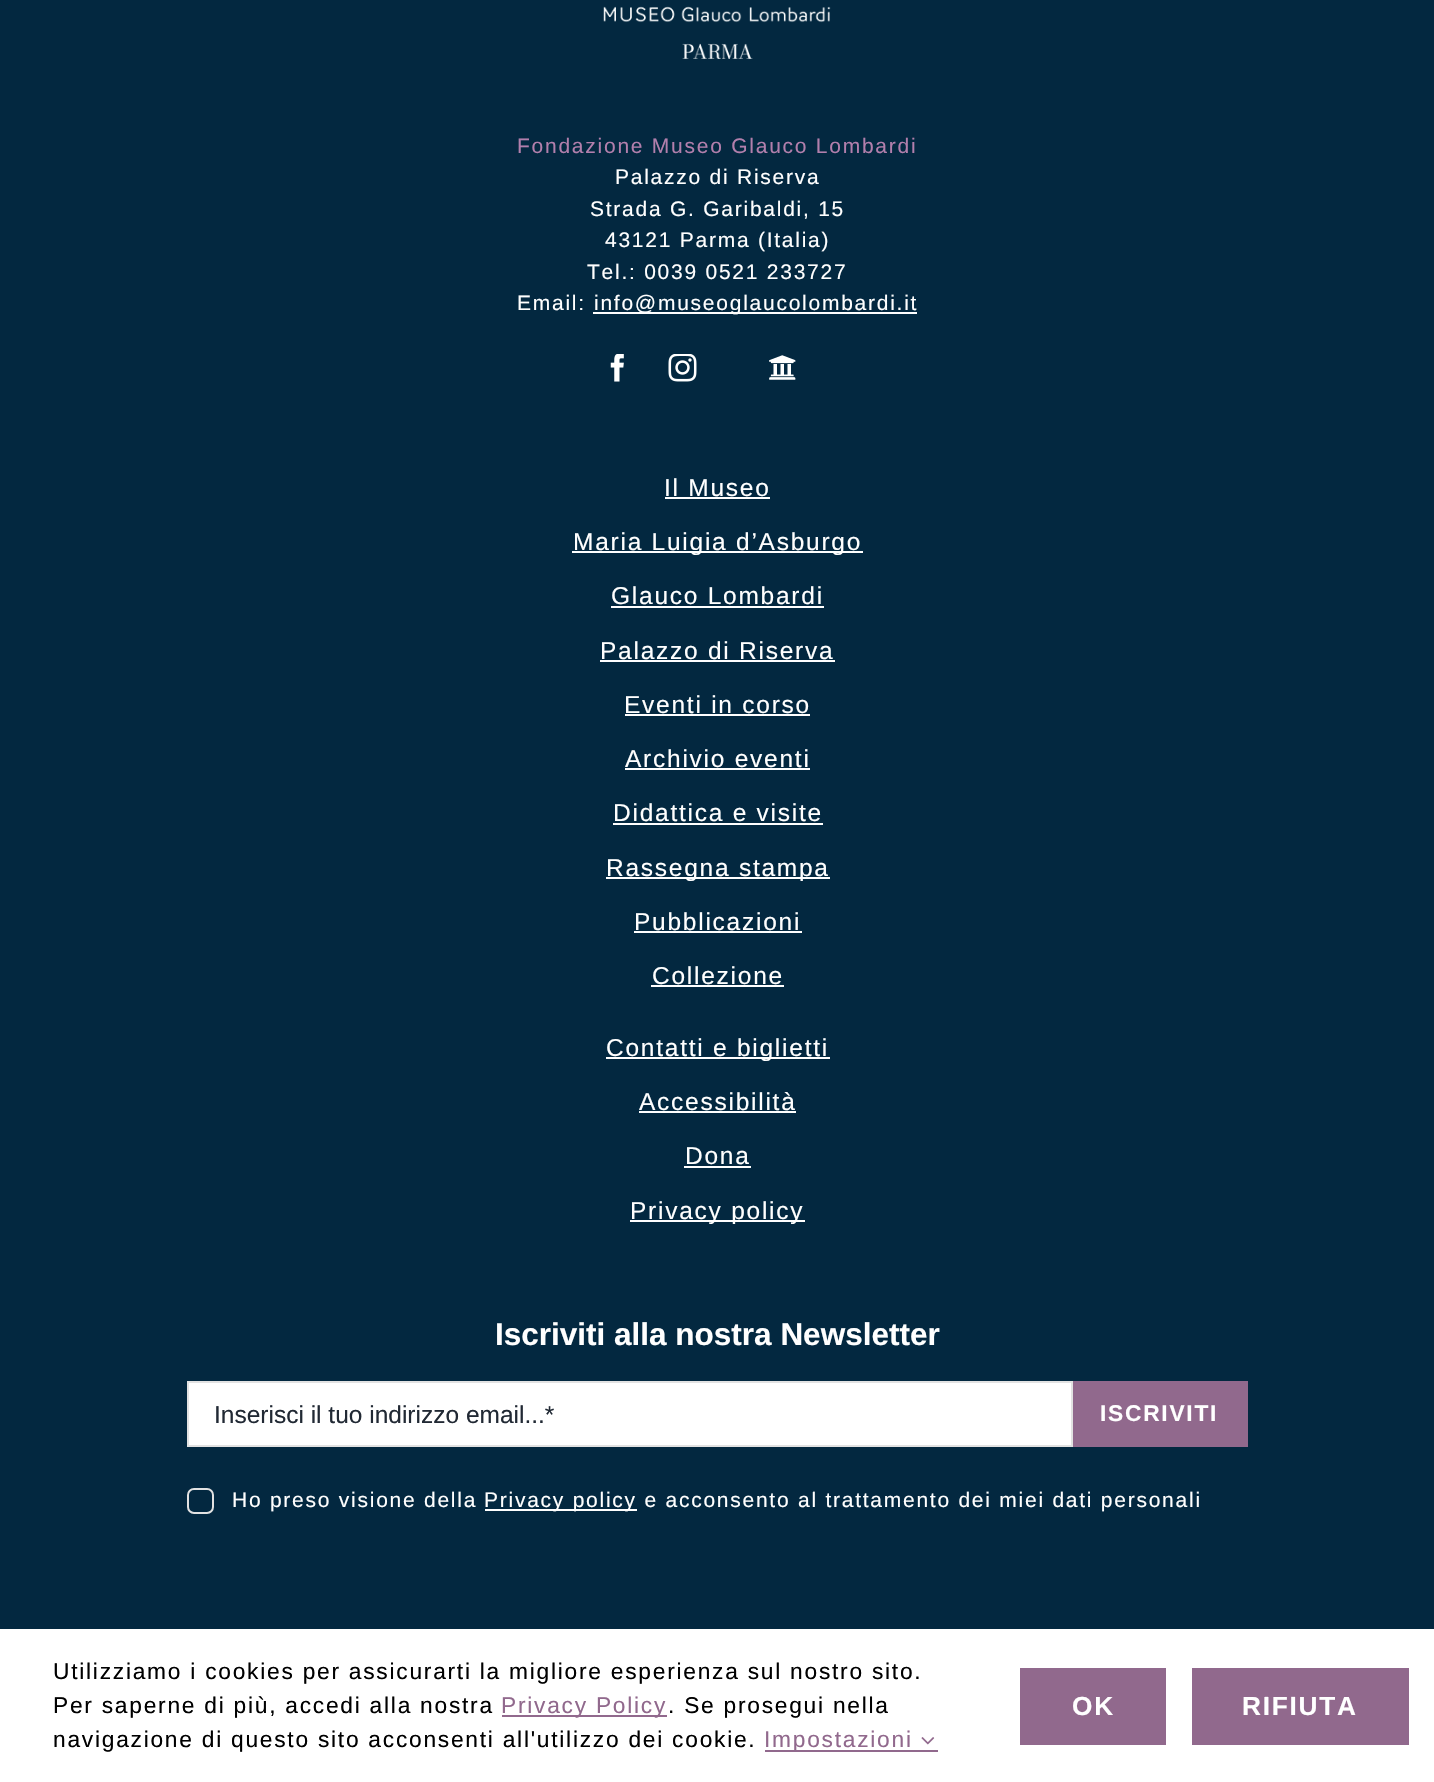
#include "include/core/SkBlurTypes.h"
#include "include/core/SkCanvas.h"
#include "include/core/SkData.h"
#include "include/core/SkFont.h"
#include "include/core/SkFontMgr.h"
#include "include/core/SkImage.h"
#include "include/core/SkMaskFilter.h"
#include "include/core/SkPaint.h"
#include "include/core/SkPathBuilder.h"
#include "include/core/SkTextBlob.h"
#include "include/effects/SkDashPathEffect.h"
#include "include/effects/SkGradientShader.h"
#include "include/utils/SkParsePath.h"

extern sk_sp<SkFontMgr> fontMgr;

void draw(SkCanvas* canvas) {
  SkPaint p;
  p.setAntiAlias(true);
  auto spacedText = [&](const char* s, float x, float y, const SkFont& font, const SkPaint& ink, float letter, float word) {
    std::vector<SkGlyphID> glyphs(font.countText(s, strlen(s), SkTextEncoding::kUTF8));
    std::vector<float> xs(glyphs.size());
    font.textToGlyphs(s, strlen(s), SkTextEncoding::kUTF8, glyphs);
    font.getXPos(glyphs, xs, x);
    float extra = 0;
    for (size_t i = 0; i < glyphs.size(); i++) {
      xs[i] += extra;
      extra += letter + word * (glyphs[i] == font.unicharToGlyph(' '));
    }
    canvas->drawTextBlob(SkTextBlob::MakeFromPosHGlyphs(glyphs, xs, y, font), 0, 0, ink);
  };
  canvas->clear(SkColorSetRGB(3, 40, 64));
  canvas->drawImageRect(SkImages::DeferredFromEncodedData(SkData::MakeFromFileName("images/1.png")), SkRect::MakeLTRB(603, 6, 831, 59), SkSamplingOptions());
  p.setColor(SK_ColorWHITE);
  canvas->drawRect(SkRect::MakeLTRB(593, 312, 917, 314), p);
  canvas->drawImageRect(SkImages::DeferredFromEncodedData(SkData::MakeFromFileName("images/2.png")), SkRect::MakeLTRB(610, 354, 624, 382), SkSamplingOptions());
  canvas->drawImageRect(SkImages::DeferredFromEncodedData(SkData::MakeFromFileName("images/3.png")), SkRect::MakeLTRB(668, 354, 697, 382), SkSamplingOptions());
  canvas->drawImageRect(SkImages::DeferredFromEncodedData(SkData::MakeFromFileName("images/4.png")), SkRect::MakeLTRB(769, 355, 796, 380), SkSamplingOptions());
  canvas->drawRect(SkRect::MakeLTRB(665, 497, 770, 499), p);
  canvas->drawRect(SkRect::MakeLTRB(572, 551, 863, 553), p);
  canvas->drawRect(SkRect::MakeLTRB(611, 606, 824, 608), p);
  canvas->drawRect(SkRect::MakeLTRB(600, 660, 835, 662), p);
  canvas->drawRect(SkRect::MakeLTRB(625, 714, 810, 716), p);
  canvas->drawRect(SkRect::MakeLTRB(625, 768, 810, 770), p);
  canvas->drawRect(SkRect::MakeLTRB(613, 823, 823, 825), p);
  canvas->drawRect(SkRect::MakeLTRB(606, 877, 830, 879), p);
  canvas->drawRect(SkRect::MakeLTRB(634, 931, 802, 933), p);
  canvas->drawRect(SkRect::MakeLTRB(651, 985, 784, 987), p);
  canvas->drawRect(SkRect::MakeLTRB(606, 1057, 830, 1059), p);
  canvas->drawRect(SkRect::MakeLTRB(639, 1111, 796, 1113), p);
  canvas->drawRect(SkRect::MakeLTRB(684, 1166, 751, 1168), p);
  canvas->drawRect(SkRect::MakeLTRB(630, 1220, 805, 1222), p);
  canvas->drawRect(SkRect::MakeLTRB(188, 1382, 1072, 1446), p);
  p.setStyle(SkPaint::kStroke_Style);
  p.setStrokeWidth(2);
  p.setColor(SkColorSetRGB(226, 226, 226));
  canvas->drawRect(SkRect::MakeLTRB(188, 1382, 1072, 1446), p);
  p.setStyle(SkPaint::kFill_Style);
  p.setColor(SkColorSetRGB(145, 105, 141));
  canvas->drawRect(SkRect::MakeLTRB(1073, 1381, 1248, 1447), p);
  p.setStyle(SkPaint::kStroke_Style);
  p.setColor(SkColorSetRGB(226, 226, 226));
  canvas->drawRoundRect(SkRect::MakeLTRB(188, 1489, 213, 1513), 6, 6, p);
  p.setStyle(SkPaint::kFill_Style);
  p.setColor(SK_ColorWHITE);
  canvas->drawRect(SkRect::MakeLTRB(485, 1509, 637, 1511), p);
  canvas->drawRect(SkRect::MakeLTRB(0, 1629, 1434, 1782), p);
  p.setColor(SkColorSetRGB(145, 105, 141));
  canvas->drawRect(SkRect::MakeLTRB(502, 1715, 667, 1717), p);
  canvas->drawRect(SkRect::MakeLTRB(765, 1750, 938, 1752), p);
  canvas->drawImageRect(SkImages::DeferredFromEncodedData(SkData::MakeFromFileName("images/5.png")), SkRect::MakeLTRB(921, 1737, 935, 1745), SkSamplingOptions());
  canvas->drawRect(SkRect::MakeLTRB(1020, 1668, 1166, 1745), p);
  canvas->drawRect(SkRect::MakeLTRB(1192, 1668, 1409, 1745), p);
  SkFont font1(fontMgr->matchFamilyStyle("Liberation Sans", SkFontStyle::Normal()), 21);
  font1.setSubpixel(true);
  p.setColor(SkColorSetRGB(178, 127, 172));
  spacedText("Fondazione Museo Glauco Lombardi", 517, 153, font1, p, 1.75f, 0);
  p.setColor(SK_ColorWHITE);
  spacedText("Palazzo di Riserva", 615, 184, font1, p, 1.75f, 0);
  spacedText("Strada G. Garibaldi, 15", 590, 216, font1, p, 1.75f, 0);
  spacedText("43121 Parma (Italia)", 605, 247, font1, p, 1.75f, 0);
  spacedText("Tel.: 0039 0521 233727", 587, 279, font1, p, 1.75f, 0);
  spacedText("Email:", 517, 310, font1, p, 1.75f, 0);
  spacedText("info@museoglaucolombardi.it", 594, 310, font1, p, 1.75f, 0);
  SkFont font2(fontMgr->matchFamilyStyle("Liberation Sans", SkFontStyle::Normal()), 24.5f);
  font2.setSubpixel(true);
  spacedText("Il Museo", 664, 496, font2, p, 1.75f, 0);
  spacedText("Maria Luigia d’Asburgo", 573, 550, font2, p, 1.75f, 0);
  spacedText("Glauco Lombardi", 611, 604, font2, p, 1.75f, 0);
  spacedText("Palazzo di Riserva", 600, 659, font2, p, 1.75f, 0);
  spacedText("Eventi in corso", 624, 713, font2, p, 1.75f, 0);
  spacedText("Archivio eventi", 625, 767, font2, p, 1.75f, 0);
  spacedText("Didattica e visite", 613, 821, font2, p, 1.75f, 0);
  spacedText("Rassegna stampa", 606, 876, font2, p, 1.75f, 0);
  spacedText("Pubblicazioni", 634, 930, font2, p, 1.75f, 0);
  spacedText("Collezione", 652, 984, font2, p, 1.75f, 0);
  spacedText("Contatti e biglietti", 606, 1056, font2, p, 1.75f, 0);
  spacedText("Accessibilità", 639, 1110, font2, p, 1.75f, 0);
  spacedText("Dona", 685, 1164, font2, p, 1.75f, 0);
  spacedText("Privacy policy", 630, 1219, font2, p, 1.75f, 0);
  SkFont font3(fontMgr->matchFamilyStyle("Liberation Sans", SkFontStyle::Bold()), 31.5f);
  font3.setSubpixel(true);
  canvas->drawString("Iscriviti alla nostra Newsletter", 495, 1345, font3, p);
  p.setColor(SkColorSetRGB(33, 41, 52));
  canvas->drawString("Inserisci il tuo indirizzo email...*", 214, 1423, font2, p);
  SkFont font4(fontMgr->matchFamilyStyle("Liberation Sans", SkFontStyle::Bold()), 22.75f);
  font4.setSubpixel(true);
  p.setColor(SK_ColorWHITE);
  spacedText("ISCRIVITI", 1100, 1421, font4, p, 1.75f, 0);
  spacedText("Ho preso visione della", 232, 1507, font1, p, 1.75f, 0);
  spacedText("Privacy policy e acconsento al trattamento dei miei dati personali", 484, 1507, font1, p, 1.75f, 0);
  SkFont font5(fontMgr->matchFamilyStyle("Liberation Sans", SkFontStyle::Normal()), 22.75f);
  font5.setSubpixel(true);
  p.setColor(SK_ColorBLACK);
  spacedText("Utilizziamo i cookies per assicurarti la migliore esperienza sul nostro sito.", 53, 1679, font5, p, 1.75f, 0);
  spacedText("Per saperne di più, accedi alla nostra", 53, 1713, font5, p, 1.75f, 0);
  p.setColor(SkColorSetRGB(145, 105, 141));
  spacedText("Privacy Policy", 501, 1713, font5, p, 1.75f, 0);
  p.setColor(SK_ColorBLACK);
  spacedText(". Se prosegui nella", 668, 1713, font5, p, 1.75f, 0);
  spacedText("navigazione di questo sito acconsenti all'utilizzo dei cookie.", 53, 1747, font5, p, 1.75f, 0);
  p.setColor(SkColorSetRGB(145, 105, 141));
  spacedText("Impostazioni", 764, 1747, font5, p, 1.75f, 0);
  SkFont font6(fontMgr->matchFamilyStyle("Liberation Sans", SkFontStyle::Bold()), 26.25f);
  font6.setSubpixel(true);
  p.setColor(SK_ColorWHITE);
  spacedText("OK", 1072, 1715, font6, p, 1.75f, 0);
  spacedText("RIFIUTA", 1242, 1715, font6, p, 1.75f, 0);
}
